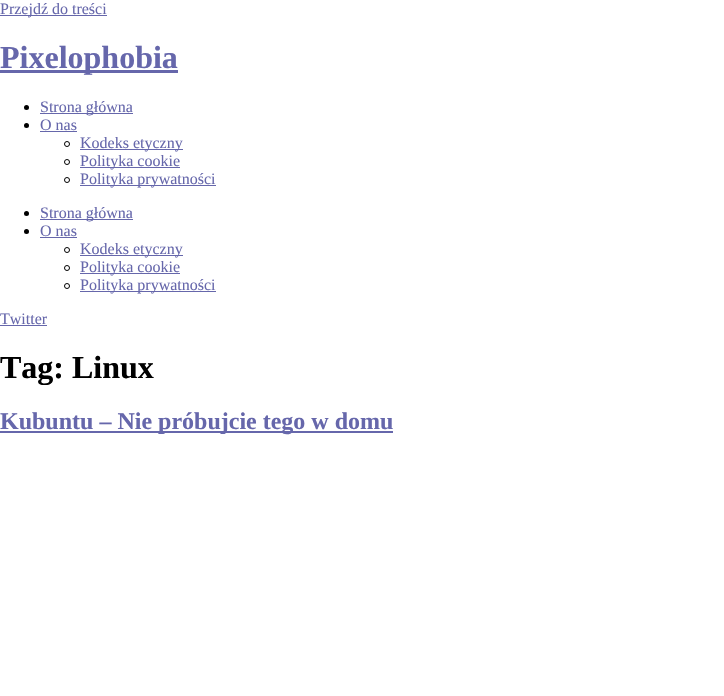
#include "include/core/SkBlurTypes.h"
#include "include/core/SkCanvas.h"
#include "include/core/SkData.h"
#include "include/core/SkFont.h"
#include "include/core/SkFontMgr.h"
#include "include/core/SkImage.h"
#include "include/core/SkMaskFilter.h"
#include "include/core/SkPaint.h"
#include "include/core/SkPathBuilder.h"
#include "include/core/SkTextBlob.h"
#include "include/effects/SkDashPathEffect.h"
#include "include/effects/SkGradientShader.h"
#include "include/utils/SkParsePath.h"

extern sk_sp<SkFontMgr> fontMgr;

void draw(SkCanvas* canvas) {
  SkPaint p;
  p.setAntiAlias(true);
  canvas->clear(SK_ColorWHITE);
  p.setColor(SkColorSetRGB(102, 103, 171));
  canvas->drawRect(SkRect::MakeLTRB(0, 15, 107, 16), p);
  canvas->drawRect(SkRect::MakeLTRB(0, 70, 178, 73), p);
  p.setColor(SK_ColorBLACK);
  canvas->drawCircle(26.5f, 107.5f, 2.5f, p);
  p.setColor(SkColorSetRGB(102, 103, 171));
  canvas->drawRect(SkRect::MakeLTRB(40, 113, 133, 114), p);
  p.setColor(SK_ColorBLACK);
  canvas->drawCircle(26.5f, 125.5f, 2.5f, p);
  p.setColor(SkColorSetRGB(102, 103, 171));
  canvas->drawRect(SkRect::MakeLTRB(40, 131, 77, 132), p);
  p.setStyle(SkPaint::kStroke_Style);
  p.setStrokeWidth(1);
  p.setColor(SK_ColorBLACK);
  canvas->drawCircle(67, 144, 2.5f, p);
  p.setStyle(SkPaint::kFill_Style);
  p.setColor(SkColorSetRGB(102, 103, 171));
  canvas->drawRect(SkRect::MakeLTRB(80, 149, 183, 150), p);
  p.setStyle(SkPaint::kStroke_Style);
  p.setColor(SK_ColorBLACK);
  canvas->drawCircle(67, 162, 2.5f, p);
  p.setStyle(SkPaint::kFill_Style);
  p.setColor(SkColorSetRGB(102, 103, 171));
  canvas->drawRect(SkRect::MakeLTRB(80, 167, 180, 168), p);
  p.setStyle(SkPaint::kStroke_Style);
  p.setColor(SK_ColorBLACK);
  canvas->drawCircle(67, 180, 2.5f, p);
  p.setStyle(SkPaint::kFill_Style);
  p.setColor(SkColorSetRGB(102, 103, 171));
  canvas->drawRect(SkRect::MakeLTRB(80, 185, 216, 186), p);
  p.setColor(SK_ColorBLACK);
  canvas->drawCircle(26.5f, 213.5f, 2.5f, p);
  p.setColor(SkColorSetRGB(102, 103, 171));
  canvas->drawRect(SkRect::MakeLTRB(40, 219, 133, 220), p);
  p.setColor(SK_ColorBLACK);
  canvas->drawCircle(26.5f, 231.5f, 2.5f, p);
  p.setColor(SkColorSetRGB(102, 103, 171));
  canvas->drawRect(SkRect::MakeLTRB(40, 237, 77, 238), p);
  p.setStyle(SkPaint::kStroke_Style);
  p.setColor(SK_ColorBLACK);
  canvas->drawCircle(67, 250, 2.5f, p);
  p.setStyle(SkPaint::kFill_Style);
  p.setColor(SkColorSetRGB(102, 103, 171));
  canvas->drawRect(SkRect::MakeLTRB(80, 255, 183, 256), p);
  p.setStyle(SkPaint::kStroke_Style);
  p.setColor(SK_ColorBLACK);
  canvas->drawCircle(67, 268, 2.5f, p);
  p.setStyle(SkPaint::kFill_Style);
  p.setColor(SkColorSetRGB(102, 103, 171));
  canvas->drawRect(SkRect::MakeLTRB(80, 273, 180, 274), p);
  p.setStyle(SkPaint::kStroke_Style);
  p.setColor(SK_ColorBLACK);
  canvas->drawCircle(67, 286, 2.5f, p);
  p.setStyle(SkPaint::kFill_Style);
  p.setColor(SkColorSetRGB(102, 103, 171));
  canvas->drawRect(SkRect::MakeLTRB(80, 291, 216, 292), p);
  canvas->drawRect(SkRect::MakeLTRB(0, 325, 47, 326), p);
  canvas->drawRect(SkRect::MakeLTRB(0, 431, 393, 433), p);
  SkFont font1(fontMgr->matchFamilyStyle("Liberation Serif", SkFontStyle::Normal()), 16);
  font1.setSubpixel(true);
  canvas->drawString("Przejdź do treści", 0, 14, font1, p);
  SkFont font2(fontMgr->matchFamilyStyle("Liberation Serif", SkFontStyle::Bold()), 32);
  font2.setSubpixel(true);
  canvas->drawString("Pixelophobia", 0, 68, font2, p);
  canvas->drawString("Strona główna", 40, 112, font1, p);
  canvas->drawString("O nas", 40, 130, font1, p);
  canvas->drawString("Kodeks etyczny", 80, 148, font1, p);
  canvas->drawString("Polityka cookie", 80, 166, font1, p);
  canvas->drawString("Polityka prywatności", 80, 184, font1, p);
  canvas->drawString("Strona główna", 40, 218, font1, p);
  canvas->drawString("O nas", 40, 236, font1, p);
  canvas->drawString("Kodeks etyczny", 80, 254, font1, p);
  canvas->drawString("Polityka cookie", 80, 272, font1, p);
  canvas->drawString("Polityka prywatności", 80, 290, font1, p);
  canvas->drawString("Twitter", 0, 324, font1, p);
  p.setColor(SK_ColorBLACK);
  canvas->drawString("Tag: Linux", 0, 378, font2, p);
  SkFont font3(fontMgr->matchFamilyStyle("Liberation Serif", SkFontStyle::Bold()), 24);
  font3.setSubpixel(true);
  p.setColor(SkColorSetRGB(102, 103, 171));
  canvas->drawString("Kubuntu – Nie próbujcie tego w domu", 0, 429, font3, p);
}
